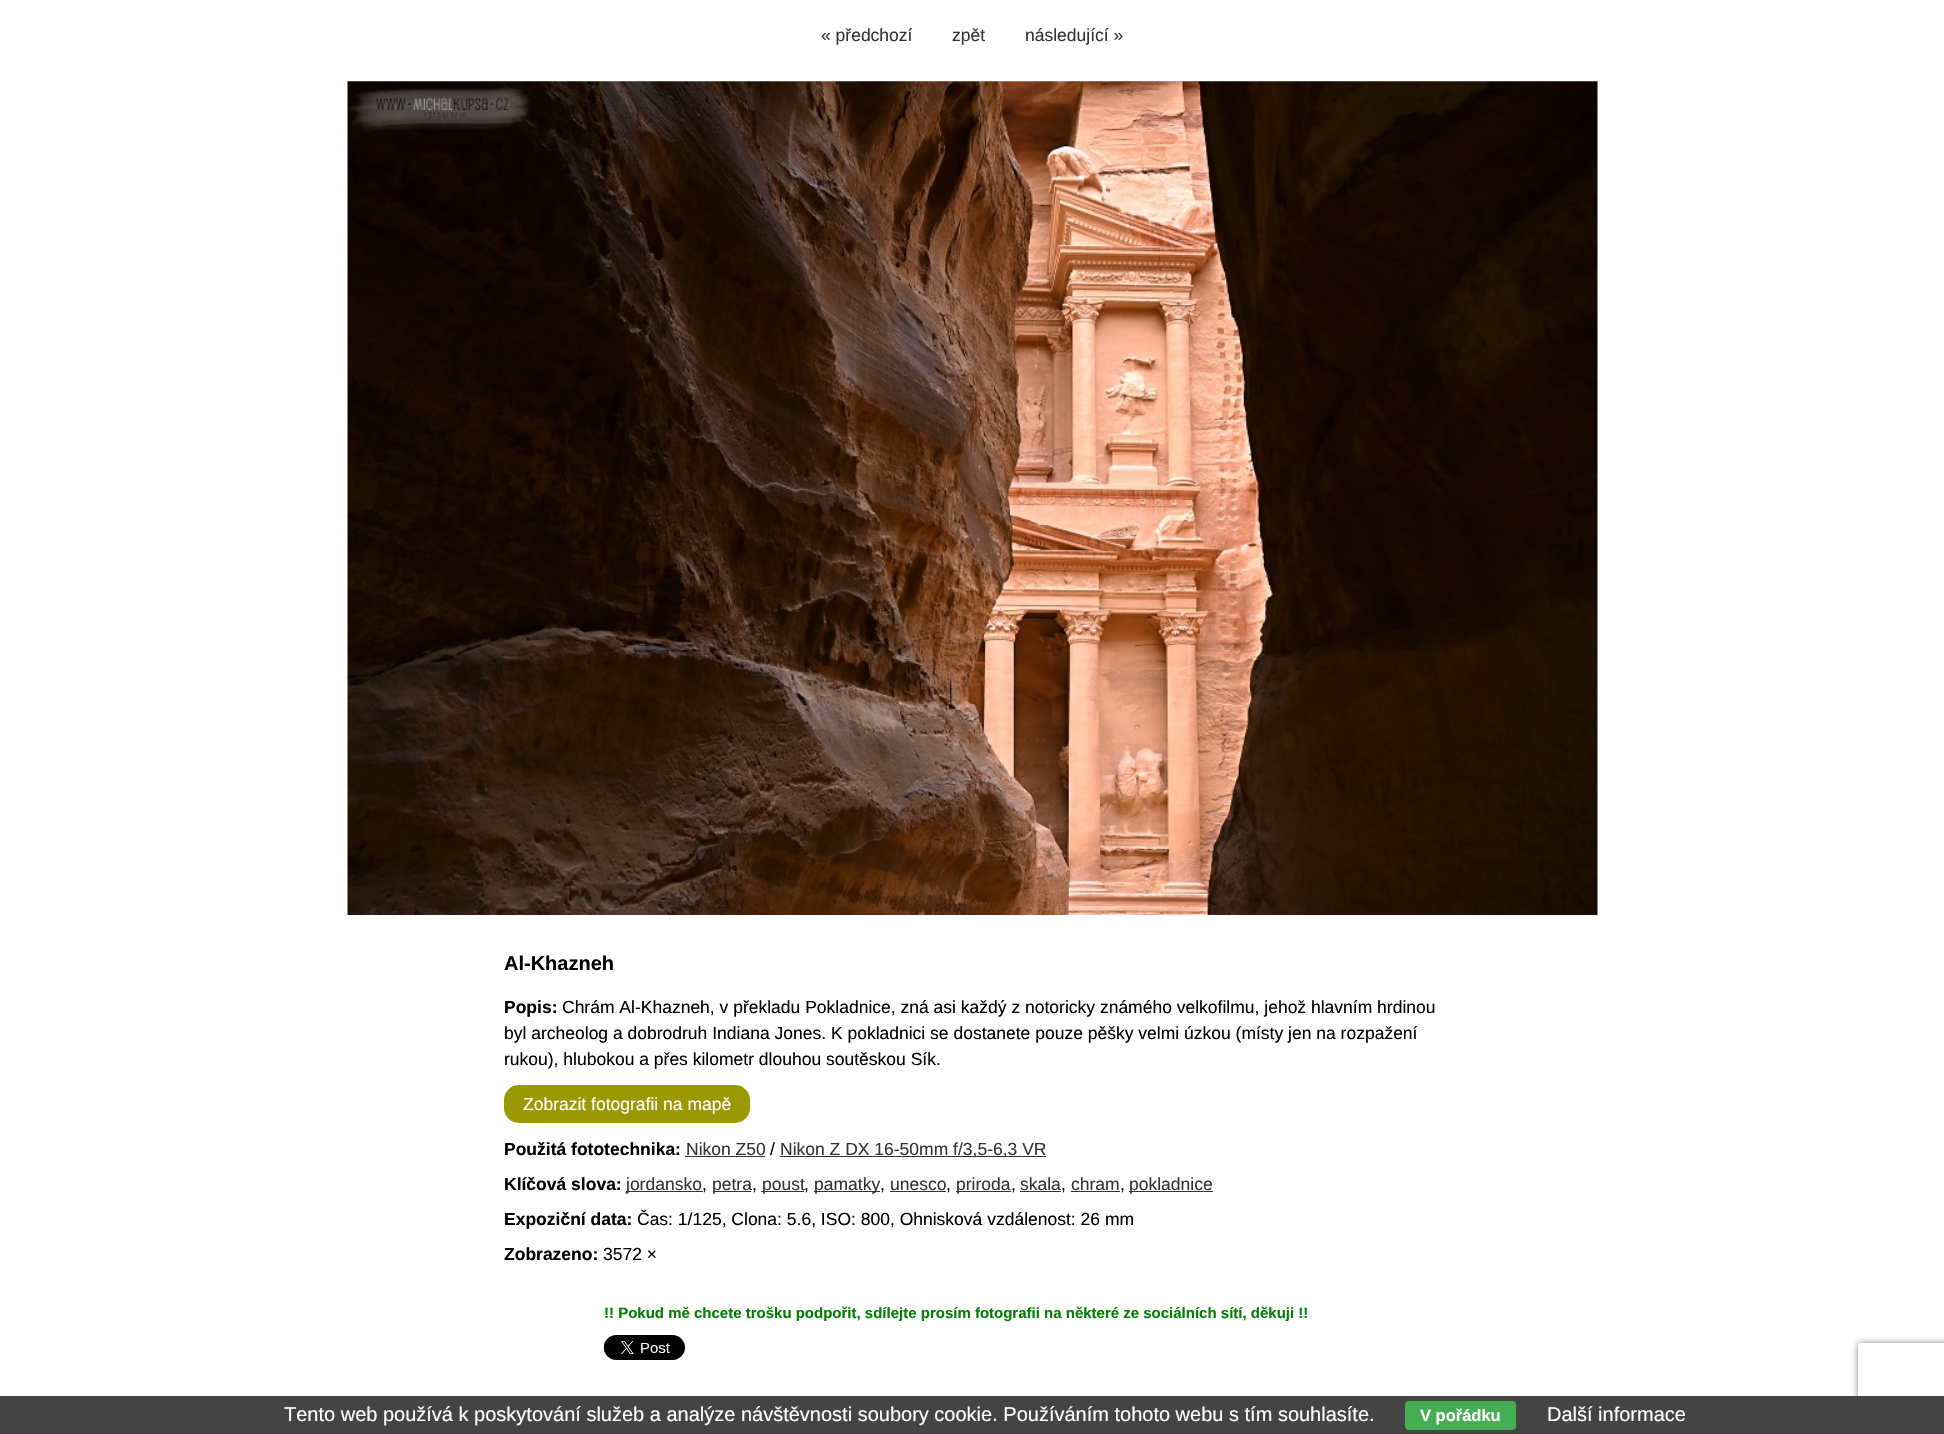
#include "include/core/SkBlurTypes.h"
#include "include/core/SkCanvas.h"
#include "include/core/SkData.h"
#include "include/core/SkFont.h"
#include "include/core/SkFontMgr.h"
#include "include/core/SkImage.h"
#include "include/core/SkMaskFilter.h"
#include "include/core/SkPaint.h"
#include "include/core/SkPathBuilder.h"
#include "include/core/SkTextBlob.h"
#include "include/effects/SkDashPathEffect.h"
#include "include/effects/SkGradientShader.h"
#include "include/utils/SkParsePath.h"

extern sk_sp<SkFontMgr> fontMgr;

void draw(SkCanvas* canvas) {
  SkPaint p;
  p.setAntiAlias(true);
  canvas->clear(SK_ColorWHITE);
  canvas->drawImageRect(SkImages::DeferredFromEncodedData(SkData::MakeFromFileName("images/1.png")), SkRect::MakeLTRB(347, 81, 1598, 915), SkSamplingOptions());
  p.setColor(SkColorSetRGB(154, 153, 1));
  canvas->drawRoundRect(SkRect::MakeLTRB(504, 1085, 750, 1123), 15, 15, p);
  p.setColor(SkColorSetRGB(51, 51, 51));
  canvas->drawRect(SkRect::MakeLTRB(685, 1156, 765, 1157), p);
  canvas->drawRect(SkRect::MakeLTRB(780, 1156, 1046, 1157), p);
  canvas->drawRect(SkRect::MakeLTRB(626, 1191, 703, 1192), p);
  canvas->drawRect(SkRect::MakeLTRB(713, 1191, 751, 1192), p);
  canvas->drawRect(SkRect::MakeLTRB(761, 1191, 804, 1192), p);
  canvas->drawRect(SkRect::MakeLTRB(814, 1191, 880, 1192), p);
  canvas->drawRect(SkRect::MakeLTRB(890, 1191, 946, 1192), p);
  canvas->drawRect(SkRect::MakeLTRB(956, 1191, 1011, 1192), p);
  canvas->drawRect(SkRect::MakeLTRB(1020, 1191, 1061, 1192), p);
  canvas->drawRect(SkRect::MakeLTRB(1071, 1191, 1120, 1192), p);
  canvas->drawRect(SkRect::MakeLTRB(1129, 1191, 1213, 1192), p);
  canvas->drawImageRect(SkImages::DeferredFromEncodedData(SkData::MakeFromFileName("images/2.png")), SkRect::MakeLTRB(603, 1335, 685, 1360), SkSamplingOptions());
  canvas->save();
  canvas->clipPath(SkPathBuilder(SkPathFillType::kEvenOdd).moveTo(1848, 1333).lineTo(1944, 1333).lineTo(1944, 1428).lineTo(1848, 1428).close().moveTo(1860.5f, 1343).lineTo(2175.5f, 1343).cubicTo(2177, 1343, 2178, 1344, 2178, 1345.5f).lineTo(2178, 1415.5f).cubicTo(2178, 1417, 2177, 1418, 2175.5f, 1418).lineTo(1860.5f, 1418).cubicTo(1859, 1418, 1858, 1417, 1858, 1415.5f).lineTo(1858, 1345.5f).cubicTo(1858, 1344, 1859, 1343, 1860.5f, 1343).close().detach(), true);
  p.setColor(SkColorSetRGB(128, 128, 128));
  p.setMaskFilter(SkMaskFilter::MakeBlur(kNormal_SkBlurStyle, 3));
  canvas->drawRoundRect(SkRect::MakeLTRB(1858, 1343, 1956, 1418), 2.5f, 2.5f, p);
  p.setMaskFilter(nullptr);
  canvas->restore();
  p.setColor(SkColorSetRGB(68, 68, 68));
  canvas->drawRect(SkRect::MakeLTRB(0, 1396, 1944, 1434), p);
  p.setColor(SkColorSetRGB(69, 174, 82));
  canvas->drawRoundRect(SkRect::MakeLTRB(1405, 1401, 1516, 1430), 4, 4, p);
  SkFont font1(fontMgr->matchFamilyStyle("Liberation Sans", SkFontStyle::Normal()), 17.5f);
  font1.setSubpixel(true);
  p.setColor(SkColorSetRGB(51, 51, 51));
  canvas->drawString("« předchozí", 821, 41, font1, p);
  canvas->drawString("zpět", 952, 41, font1, p);
  canvas->drawString("následující »", 1025, 41, font1, p);
  SkFont font2(fontMgr->matchFamilyStyle("Liberation Sans", SkFontStyle::Bold()), 20);
  font2.setSubpixel(true);
  p.setColor(SK_ColorBLACK);
  canvas->drawString("Al-Khazneh", 504, 970, font2, p);
  SkFont font3(fontMgr->matchFamilyStyle("Liberation Sans", SkFontStyle::Bold()), 17.5f);
  font3.setSubpixel(true);
  canvas->drawString("Popis:", 504, 1013, font3, p);
  canvas->drawString("Chrám Al-Khazneh, v překladu Pokladnice, zná asi každý z notoricky známého velkofilmu, jehož hlavním hrdinou", 562, 1013, font1, p);
  canvas->drawString("byl archeolog a dobrodruh Indiana Jones. K pokladnici se dostanete pouze pěšky velmi úzkou (místy jen na rozpažení", 504, 1039, font1, p);
  canvas->drawString("rukou), hlubokou a přes kilometr dlouhou soutěskou Sík.", 504, 1065, font1, p);
  p.setColor(SK_ColorWHITE);
  canvas->drawString("Zobrazit fotografii na mapě", 523, 1110, font1, p);
  p.setColor(SK_ColorBLACK);
  canvas->drawString("Použitá fototechnika:", 504, 1155, font3, p);
  p.setColor(SkColorSetRGB(51, 51, 51));
  canvas->drawString("Nikon Z50", 686, 1155, font1, p);
  p.setColor(SK_ColorBLACK);
  canvas->drawString("/", 770, 1155, font1, p);
  p.setColor(SkColorSetRGB(51, 51, 51));
  canvas->drawString("Nikon Z DX 16-50mm f/3,5-6,3 VR", 780, 1155, font1, p);
  p.setColor(SK_ColorBLACK);
  canvas->drawString("Klíčová slova:", 504, 1190, font3, p);
  p.setColor(SkColorSetRGB(51, 51, 51));
  canvas->drawString("jordansko", 626, 1190, font1, p);
  p.setColor(SK_ColorBLACK);
  canvas->drawString(",", 702, 1190, font1, p);
  p.setColor(SkColorSetRGB(51, 51, 51));
  canvas->drawString("petra", 712, 1190, font1, p);
  p.setColor(SK_ColorBLACK);
  canvas->drawString(",", 752, 1190, font1, p);
  p.setColor(SkColorSetRGB(51, 51, 51));
  canvas->drawString("poust", 762, 1190, font1, p);
  p.setColor(SK_ColorBLACK);
  canvas->drawString(",", 804, 1190, font1, p);
  p.setColor(SkColorSetRGB(51, 51, 51));
  canvas->drawString("pamatky", 814, 1190, font1, p);
  p.setColor(SK_ColorBLACK);
  canvas->drawString(",", 880, 1190, font1, p);
  p.setColor(SkColorSetRGB(51, 51, 51));
  canvas->drawString("unesco", 890, 1190, font1, p);
  p.setColor(SK_ColorBLACK);
  canvas->drawString(",", 946, 1190, font1, p);
  p.setColor(SkColorSetRGB(51, 51, 51));
  canvas->drawString("priroda", 956, 1190, font1, p);
  p.setColor(SK_ColorBLACK);
  canvas->drawString(",", 1011, 1190, font1, p);
  p.setColor(SkColorSetRGB(51, 51, 51));
  canvas->drawString("skala", 1020, 1190, font1, p);
  p.setColor(SK_ColorBLACK);
  canvas->drawString(",", 1061, 1190, font1, p);
  p.setColor(SkColorSetRGB(51, 51, 51));
  canvas->drawString("chram", 1071, 1190, font1, p);
  p.setColor(SK_ColorBLACK);
  canvas->drawString(",", 1120, 1190, font1, p);
  p.setColor(SkColorSetRGB(51, 51, 51));
  canvas->drawString("pokladnice", 1129, 1190, font1, p);
  p.setColor(SK_ColorBLACK);
  canvas->drawString("Expoziční data:", 504, 1225, font3, p);
  canvas->drawString("Čas: 1/125, Clona: 5.6, ISO: 800, Ohnisková vzdálenost: 26 mm", 637, 1225, font1, p);
  canvas->drawString("Zobrazeno:", 504, 1260, font3, p);
  canvas->drawString("3572 ×", 603, 1260, font1, p);
  SkFont font4(fontMgr->matchFamilyStyle("Liberation Sans", SkFontStyle::Bold()), 15);
  font4.setSubpixel(true);
  p.setColor(SkColorSetRGB(0, 128, 0));
  canvas->drawString("!! Pokud mě chcete trošku podpořit, sdílejte prosím fotografii na některé ze sociálních sítí, děkuji !!", 604, 1318, font4, p);
  SkFont font5(fontMgr->matchFamilyStyle("Liberation Sans", SkFontStyle::Normal()), 20);
  font5.setSubpixel(true);
  p.setColor(SK_ColorWHITE);
  canvas->drawString("Tento web používá k poskytování služeb a analýze návštěvnosti soubory cookie. Používáním tohoto webu s tím souhlasíte.", 284, 1421, font5, p);
  SkFont font6(fontMgr->matchFamilyStyle("Liberation Sans", SkFontStyle::Bold()), 16.5f);
  font6.setSubpixel(true);
  canvas->drawString("V pořádku", 1420, 1421, font6, p);
  canvas->drawString("Další informace", 1547, 1421, font5, p);
}
